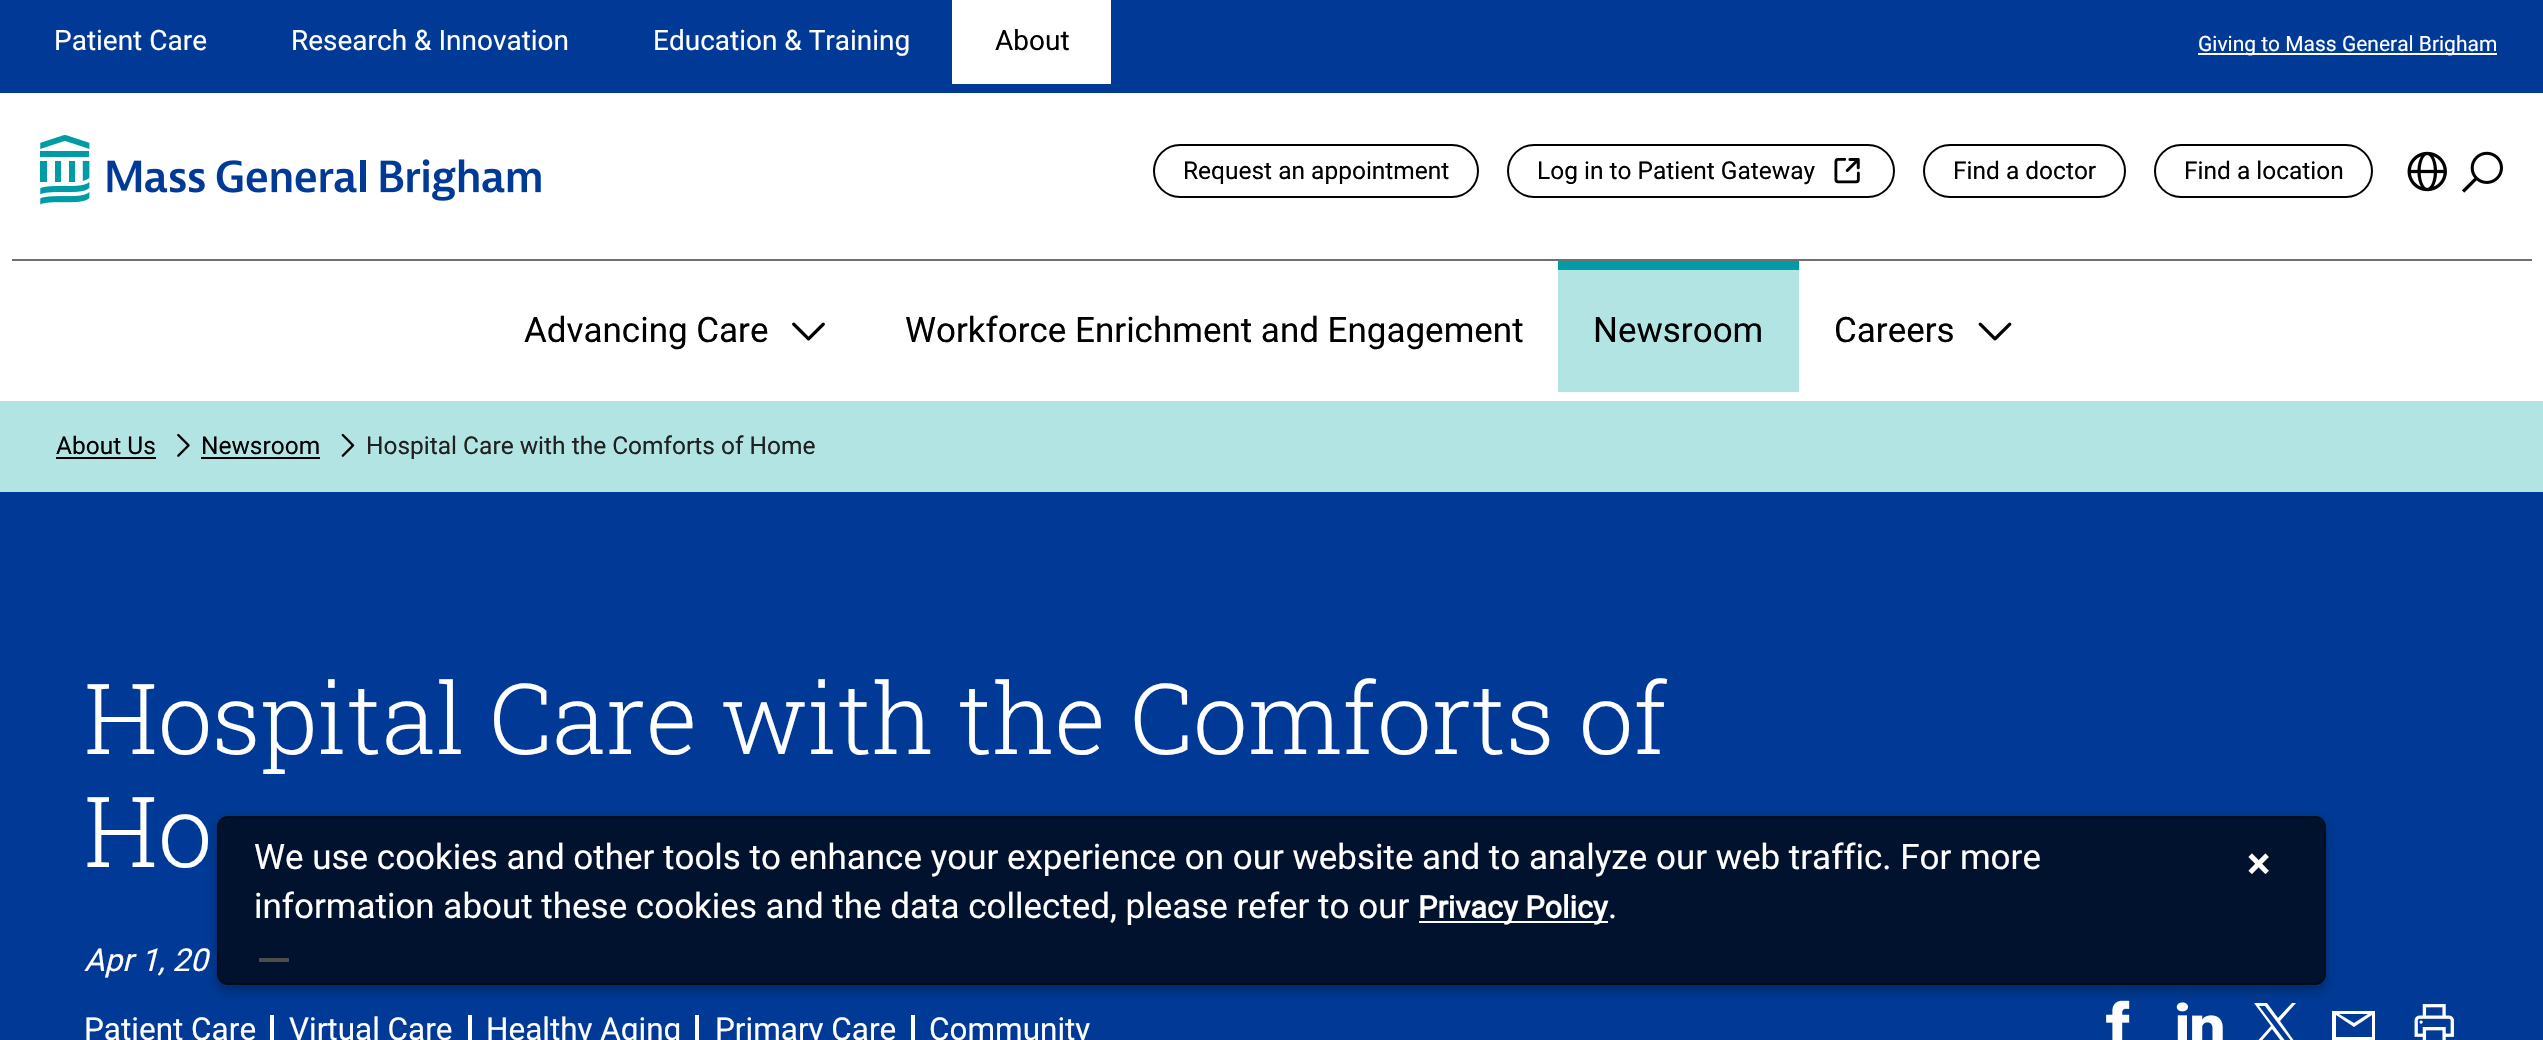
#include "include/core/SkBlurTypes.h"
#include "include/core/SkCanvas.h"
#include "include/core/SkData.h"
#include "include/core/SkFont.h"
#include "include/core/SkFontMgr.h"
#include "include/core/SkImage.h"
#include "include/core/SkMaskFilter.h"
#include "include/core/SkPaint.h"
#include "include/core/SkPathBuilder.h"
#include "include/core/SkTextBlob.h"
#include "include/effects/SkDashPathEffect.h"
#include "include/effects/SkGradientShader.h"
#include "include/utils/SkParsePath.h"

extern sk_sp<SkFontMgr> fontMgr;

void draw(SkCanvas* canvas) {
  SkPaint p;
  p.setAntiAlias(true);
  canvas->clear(SK_ColorWHITE);
  p.setColor(SkColorSetRGB(0, 58, 150));
  canvas->drawRect(SkRect::MakeLTRB(0, 0, 2543, 93), p);
  p.setColor(SK_ColorWHITE);
  canvas->drawRect(SkRect::MakeLTRB(952, 0, 1111, 84), p);
  canvas->drawRect(SkRect::MakeLTRB(2198, 53, 2497, 55), p);
  p.setColor(SkColorSetRGB(112, 112, 112));
  canvas->drawRect(SkRect::MakeLTRB(12, 259, 2532, 261), p);
  canvas->drawImageRect(SkImages::DeferredFromEncodedData(SkData::MakeFromFileName("images/1.png")), SkRect::MakeLTRB(40, 135, 541, 205), SkSamplingOptions());
  p.setStyle(SkPaint::kStroke_Style);
  p.setStrokeWidth(2);
  p.setColor(SK_ColorBLACK);
  canvas->drawRoundRect(SkRect::MakeLTRB(1154, 145, 1478, 197), 26, 26, p);
  canvas->drawRoundRect(SkRect::MakeLTRB(1508, 145, 1894, 197), 26, 26, p);
  canvas->drawImageRect(SkImages::DeferredFromEncodedData(SkData::MakeFromFileName("images/2.png")), SkRect::MakeLTRB(1834, 158, 1860, 184), SkSamplingOptions());
  canvas->drawRoundRect(SkRect::MakeLTRB(1924, 145, 2125, 197), 26, 26, p);
  canvas->drawRoundRect(SkRect::MakeLTRB(2155, 145, 2372, 197), 26, 26, p);
  canvas->drawImageRect(SkImages::DeferredFromEncodedData(SkData::MakeFromFileName("images/3.png")), SkRect::MakeLTRB(2407, 151, 2447, 192), SkSamplingOptions());
  canvas->drawImageRect(SkImages::DeferredFromEncodedData(SkData::MakeFromFileName("images/4.png")), SkRect::MakeLTRB(2462, 151, 2503, 193), SkSamplingOptions());
  canvas->drawImageRect(SkImages::DeferredFromEncodedData(SkData::MakeFromFileName("images/5.png")), SkRect::MakeLTRB(792, 322, 825, 341), SkSamplingOptions());
  p.setStyle(SkPaint::kFill_Style);
  p.setColor(SkColorSetRGB(177, 228, 227));
  canvas->drawRect(SkRect::MakeLTRB(1558, 270, 1799, 392), p);
  p.setColor(SkColorSetRGB(0, 156, 166));
  canvas->drawRect(SkRect::MakeLTRB(1558, 261, 1799, 270), p);
  canvas->drawImageRect(SkImages::DeferredFromEncodedData(SkData::MakeFromFileName("images/6.png")), SkRect::MakeLTRB(1978, 322, 2012, 341), SkSamplingOptions());
  p.setColor(SkColorSetRGB(177, 228, 227));
  canvas->drawRect(SkRect::MakeLTRB(0, 401, 2543, 492), p);
  p.setColor(SK_ColorBLACK);
  canvas->drawRect(SkRect::MakeLTRB(56, 457, 156, 459), p);
  canvas->drawImageRect(SkImages::DeferredFromEncodedData(SkData::MakeFromFileName("images/7.png")), SkRect::MakeLTRB(177, 433, 190, 457), SkSamplingOptions());
  canvas->drawRect(SkRect::MakeLTRB(201, 457, 320, 459), p);
  canvas->drawImageRect(SkImages::DeferredFromEncodedData(SkData::MakeFromFileName("images/8.png")), SkRect::MakeLTRB(341, 433, 355, 457), SkSamplingOptions());
  p.setColor(SkColorSetRGB(0, 58, 150));
  canvas->drawRect(SkRect::MakeLTRB(0, 492, 2543, 1040), p);
  p.setColor(SK_ColorWHITE);
  canvas->drawRect(SkRect::MakeLTRB(259, 958, 289, 962), p);
  canvas->drawRect(SkRect::MakeLTRB(270, 1015, 274, 1040), p);
  canvas->drawRect(SkRect::MakeLTRB(468, 1015, 472, 1040), p);
  canvas->drawRect(SkRect::MakeLTRB(695, 1015, 699, 1040), p);
  canvas->drawRect(SkRect::MakeLTRB(911, 1015, 915, 1040), p);
  canvas->drawImageRect(SkImages::DeferredFromEncodedData(SkData::MakeFromFileName("images/9.png")), SkRect::MakeLTRB(2106, 1000, 2130, 1040), SkSamplingOptions());
  canvas->drawImageRect(SkImages::DeferredFromEncodedData(SkData::MakeFromFileName("images/10.png")), SkRect::MakeLTRB(2176, 1002, 2223, 1040), SkSamplingOptions());
  canvas->drawPath(SkPathBuilder(SkPathFillType::kEvenOdd).moveTo(2297, 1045).lineTo(2284, 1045).lineTo(2272, 1029).lineTo(2258, 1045).lineTo(2254, 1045).lineTo(2271, 1026).lineTo(2254, 1003).lineTo(2267, 1003).lineTo(2278, 1018).lineTo(2292, 1003).lineTo(2296, 1003).lineTo(2280, 1021).close().moveTo(2259, 1006).lineTo(2286, 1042).lineTo(2292, 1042).lineTo(2265, 1006).close().detach(), p);
  canvas->drawPath(SkPathBuilder(SkPathFillType::kEvenOdd).moveTo(2332, 1011).lineTo(2332, 1040).lineTo(2375, 1040).lineTo(2375, 1011).close().moveTo(2339, 1014).lineTo(2368, 1014).lineTo(2354, 1023).close().moveTo(2336, 1015).lineTo(2354, 1027).lineTo(2372, 1015).lineTo(2372, 1037).lineTo(2336, 1037).close().detach(), p);
  canvas->drawImageRect(SkImages::DeferredFromEncodedData(SkData::MakeFromFileName("images/11.png")), SkRect::MakeLTRB(2414, 1004, 2454, 1040), SkSamplingOptions());
  canvas->save();
  canvas->clipPath(SkPathBuilder(SkPathFillType::kEvenOdd).moveTo(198, 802).lineTo(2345, 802).lineTo(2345, 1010).lineTo(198, 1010).close().moveTo(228, 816).lineTo(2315, 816).cubicTo(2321, 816, 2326, 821, 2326, 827).lineTo(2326, 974).cubicTo(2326, 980, 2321, 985, 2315, 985).lineTo(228, 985).cubicTo(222, 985, 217, 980, 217, 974).lineTo(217, 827).cubicTo(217, 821, 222, 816, 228, 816).close().detach(), true);
  p.setColor(SkColorSetARGB(77, 0, 0, 0));
  p.setMaskFilter(SkMaskFilter::MakeBlur(kNormal_SkBlurStyle, 6));
  canvas->drawRoundRect(SkRect::MakeLTRB(217, 821, 2326, 991), 11, 11, p);
  p.setMaskFilter(nullptr);
  canvas->restore();
  p.setColor(SkColorSetARGB(179, 0, 0, 0));
  canvas->drawRoundRect(SkRect::MakeLTRB(217, 816, 2326, 985), 11, 11, p);
  p.setStyle(SkPaint::kStroke_Style);
  p.setColor(SkColorSetARGB(102, 0, 0, 0));
  canvas->drawRoundRect(SkRect::MakeLTRB(218, 817, 2325, 984), 10, 10, p);
  p.setStyle(SkPaint::kFill_Style);
  p.setColor(SkColorSetRGB(254, 254, 254));
  canvas->drawRect(SkRect::MakeLTRB(1419, 921, 1608, 923), p);
  SkFont font1(fontMgr->matchFamilyStyle("Roboto", SkFontStyle::Normal()), 28);
  font1.setSubpixel(true);
  p.setColor(SK_ColorWHITE);
  canvas->drawString("Patient Care", 54, 50, font1, p);
  canvas->drawString("Research & Innovation", 291, 50, font1, p);
  canvas->drawString("Education & Training", 653, 50, font1, p);
  p.setColor(SK_ColorBLACK);
  canvas->drawString("About", 995, 50, font1, p);
  SkFont font2(fontMgr->matchFamilyStyle("Roboto", SkFontStyle::Normal()), 21);
  font2.setSubpixel(true);
  p.setColor(SK_ColorWHITE);
  canvas->drawString("Giving to Mass General Brigham", 2198, 51, font2, p);
  SkFont font3(fontMgr->matchFamilyStyle("Roboto", SkFontStyle::Normal()), 24.5f);
  font3.setSubpixel(true);
  p.setColor(SK_ColorBLACK);
  canvas->drawString("Request an appointment", 1183, 179, font3, p);
  canvas->drawString("Log in to Patient Gateway", 1537, 179, font3, p);
  canvas->drawString("Find a doctor", 1953, 179, font3, p);
  canvas->drawString("Find a location", 2184, 179, font3, p);
  SkFont font4(fontMgr->matchFamilyStyle("Roboto", SkFontStyle::Normal()), 35);
  font4.setSubpixel(true);
  canvas->drawString("Advancing Care", 524, 342, font4, p);
  canvas->drawString("Workforce Enrichment and Engagement", 905, 342, font4, p);
  canvas->drawString("Newsroom", 1593, 342, font4, p);
  canvas->drawString("Careers", 1834, 342, font4, p);
  canvas->drawString("About Us", 56, 454, font3, p);
  canvas->drawString("Newsroom", 201, 454, font3, p);
  p.setColor(SkColorSetRGB(32, 32, 32));
  canvas->drawString("Hospital Care with the Comforts of Home", 366, 454, font3, p);
  SkFont font5(fontMgr->matchFamilyStyle("Roboto Slab", SkFontStyle(300, SkFontStyle::kNormal_Width, SkFontStyle::kUpright_Slant)), 98);
  font5.setSubpixel(true);
  p.setColor(SK_ColorWHITE);
  canvas->drawString("Hospital Care with the Comforts of", 84, 754, font5, p);
  canvas->drawString("Ho", 84, 867, font5, p);
  SkFont font6(fontMgr->matchFamilyStyle("Roboto", SkFontStyle::Italic()), 31.5f);
  font6.setSubpixel(true);
  canvas->drawString("Apr 1, 20", 84, 971, font6, p);
  SkFont font7(fontMgr->matchFamilyStyle("Roboto", SkFontStyle::Normal()), 31.5f);
  font7.setSubpixel(true);
  canvas->drawString("Patient Care", 84, 1040, font7, p);
  canvas->drawString("Virtual Care", 289, 1040, font7, p);
  canvas->drawString("Healthy Aging", 486, 1040, font7, p);
  canvas->drawString("Primary Care", 715, 1040, font7, p);
  canvas->drawString("Community", 929, 1040, font7, p);
  canvas->drawString("We use cookies and other tools to enhance your experience on our website and to analyze our web traffic. For more", 254, 869, font4, p);
  canvas->drawString("information about these cookies and the data collected, please refer to our", 254, 918, font4, p);
  SkFont font8(fontMgr->matchFamilyStyle("Roboto", SkFontStyle::Bold()), 30.75f);
  font8.setSubpixel(true);
  canvas->drawString("Privacy Policy", 1418, 918, font8, p);
  canvas->drawString(".", 1608, 918, font4, p);
  SkFont font9(fontMgr->matchFamilyStyle("Roboto", SkFontStyle::Bold()), 42);
  font9.setSubpixel(true);
  canvas->drawString("×", 2247, 878, font9, p);
}
